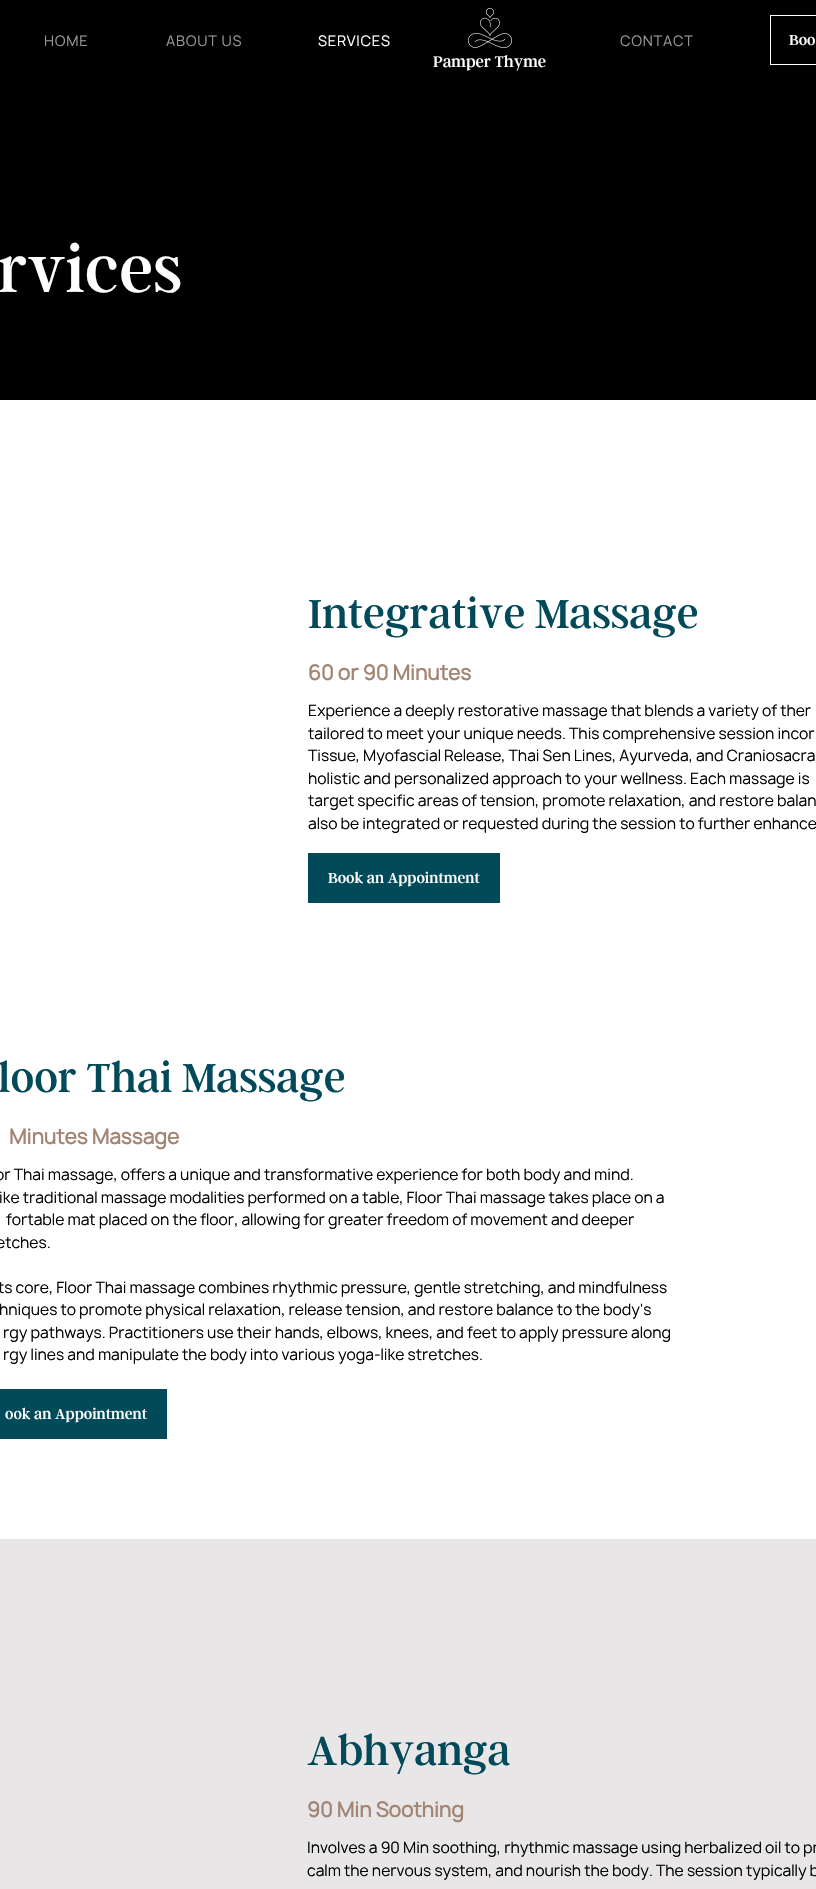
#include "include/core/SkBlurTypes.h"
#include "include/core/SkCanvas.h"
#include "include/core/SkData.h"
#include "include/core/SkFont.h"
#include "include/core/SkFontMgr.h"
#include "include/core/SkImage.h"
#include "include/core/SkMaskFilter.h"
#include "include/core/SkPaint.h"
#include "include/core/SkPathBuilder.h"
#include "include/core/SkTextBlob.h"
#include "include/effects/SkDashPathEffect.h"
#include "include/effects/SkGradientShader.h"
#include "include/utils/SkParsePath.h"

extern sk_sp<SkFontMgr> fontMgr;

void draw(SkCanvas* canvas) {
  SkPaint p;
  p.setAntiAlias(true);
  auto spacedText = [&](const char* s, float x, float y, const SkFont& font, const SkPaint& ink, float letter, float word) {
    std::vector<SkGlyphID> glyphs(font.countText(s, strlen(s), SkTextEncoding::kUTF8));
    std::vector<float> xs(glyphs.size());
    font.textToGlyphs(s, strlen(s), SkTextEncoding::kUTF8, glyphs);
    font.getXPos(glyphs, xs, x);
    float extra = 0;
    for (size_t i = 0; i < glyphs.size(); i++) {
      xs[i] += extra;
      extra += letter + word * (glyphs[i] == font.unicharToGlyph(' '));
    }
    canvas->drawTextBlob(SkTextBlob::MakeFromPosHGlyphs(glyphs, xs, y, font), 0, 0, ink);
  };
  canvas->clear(SK_ColorWHITE);
  p.setColor(SK_ColorBLACK);
  canvas->drawRect(SkRect::MakeLTRB(0, 0, 816, 400), p);
  p.setStyle(SkPaint::kStroke_Style);
  p.setStrokeWidth(1);
  p.setColor(SK_ColorWHITE);
  canvas->drawRect(SkRect::MakeLTRB(770.5f, 15.5f, 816.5f, 64.5f), p);
  canvas->drawImageRect(SkImages::DeferredFromEncodedData(SkData::MakeFromFileName("images/1.png")), SkRect::MakeLTRB(468, 8, 512, 48), SkSamplingOptions());
  p.setStyle(SkPaint::kFill_Style);
  p.setColor(SkColorSetRGB(2, 74, 89));
  canvas->drawRect(SkRect::MakeLTRB(308, 853, 500, 903), p);
  canvas->drawRect(SkRect::MakeLTRB(0, 1389, 167, 1439), p);
  p.setColor(SkColorSetRGB(232, 230, 230));
  canvas->drawRect(SkRect::MakeLTRB(0, 1539, 816, 1889), p);
  SkFont font1(fontMgr->matchFamilyStyle("Manrope", SkFontStyle::Normal()), 14);
  font1.setSubpixel(true);
  p.setColor(SkColorSetRGB(153, 153, 153));
  spacedText("HOME", 44, 46, font1, p, 0.75f, 0);
  spacedText("ABOUT US", 166, 46, font1, p, 0.75f, 0);
  p.setColor(SK_ColorWHITE);
  spacedText("SERVICES", 318, 46, font1, p, 0.75f, 0);
  p.setColor(SkColorSetRGB(153, 153, 153));
  spacedText("CONTACT", 620, 46, font1, p, 0.75f, 0);
  SkFont font2(fontMgr->matchFamilyStyle("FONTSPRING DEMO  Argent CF", SkFontStyle::Normal()), 16);
  font2.setSubpixel(true);
  p.setColor(SK_ColorWHITE);
  canvas->drawString("Boo", 789, 45, font2, p);
  SkFont font3(fontMgr->matchFamilyStyle("FONTSPRING DEMO  Argent CF", SkFontStyle::Normal()), 17);
  font3.setSubpixel(true);
  canvas->drawString("Pamper Thyme", 433, 67, font3, p);
  SkFont font4(fontMgr->matchFamilyStyle("FONTSPRING DEMO  Argent CF", SkFontStyle::Normal()), 70);
  font4.setSubpixel(true);
  canvas->drawString("rvices", -2, 292, font4, p);
  SkFont font5(fontMgr->matchFamilyStyle("FONTSPRING DEMO  Argent CF", SkFontStyle::Normal()), 45);
  font5.setSubpixel(true);
  p.setColor(SkColorSetRGB(2, 74, 89));
  canvas->drawString("Integrative Massage", 308, 628, font5, p);
  SkFont font6(fontMgr->matchFamilyStyle("Manrope", SkFontStyle::Bold()), 20);
  font6.setSubpixel(true);
  p.setColor(SkColorSetRGB(163, 133, 116));
  canvas->drawString("60 or 90 Minutes", 308, 680, font6, p);
  SkFont font7(fontMgr->matchFamilyStyle("Manrope", SkFontStyle::Normal()), 15);
  font7.setSubpixel(true);
  p.setColor(SK_ColorBLACK);
  canvas->drawString("Experience a deeply restorative massage that blends a variety of ther", 308, 716, font7, p);
  canvas->drawString("tailored to meet your unique needs. This comprehensive session incor", 308, 739, font7, p);
  canvas->drawString("Tissue, Myofascial Release, Thai Sen Lines, Ayurveda, and Craniosacra", 308, 761, font7, p);
  canvas->drawString("holistic and personalized approach to your wellness. Each massage is", 308, 784, font7, p);
  canvas->drawString("target specific areas of tension, promote relaxation, and restore balan", 308, 806, font7, p);
  canvas->drawString("also be integrated or requested during the session to further enhance", 308, 829, font7, p);
  p.setColor(SK_ColorWHITE);
  canvas->drawString("Book an Appointment", 328, 883, font2, p);
  p.setColor(SkColorSetRGB(2, 74, 89));
  canvas->drawString("loor Thai Massage", -2, 1092, font5, p);
  p.setColor(SkColorSetRGB(163, 133, 116));
  canvas->drawString("Minutes Massage", 9, 1144, font6, p);
  p.setColor(SK_ColorBLACK);
  canvas->drawString("or Thai massage, offers a unique and transformative experience for both body and mind.", -5, 1180, font7, p);
  canvas->drawString("ike traditional massage modalities performed on a table, Floor Thai massage takes place on a", -1, 1203, font7, p);
  canvas->drawString("fortable mat placed on the floor, allowing for greater freedom of movement and deeper", 6, 1225, font7, p);
  canvas->drawString("etches.", -4, 1248, font7, p);
  canvas->drawString("ts core, Floor Thai massage combines rhythmic pressure, gentle stretching, and mindfulness", -2, 1293, font7, p);
  canvas->drawString("hniques to promote physical relaxation, release tension, and restore balance to the body's", -1, 1315, font7, p);
  canvas->drawString("rgy pathways. Practitioners use their hands, elbows, knees, and feet to apply pressure along", 3, 1338, font7, p);
  canvas->drawString("rgy lines and manipulate the body into various yoga-like stretches.", 3, 1360, font7, p);
  p.setColor(SK_ColorWHITE);
  canvas->drawString("ook an Appointment", 5, 1419, font2, p);
  p.setColor(SkColorSetRGB(2, 74, 89));
  canvas->drawString("Abhyanga", 307, 1765, font5, p);
  p.setColor(SkColorSetRGB(163, 133, 116));
  canvas->drawString("90 Min Soothing", 307, 1817, font6, p);
  p.setColor(SK_ColorBLACK);
  canvas->drawString("Involves a 90 Min soothing, rhythmic massage using herbalized oil to pr", 307, 1853, font7, p);
  canvas->drawString("calm the nervous system, and nourish the body. The session typically b", 307, 1876, font7, p);
}
